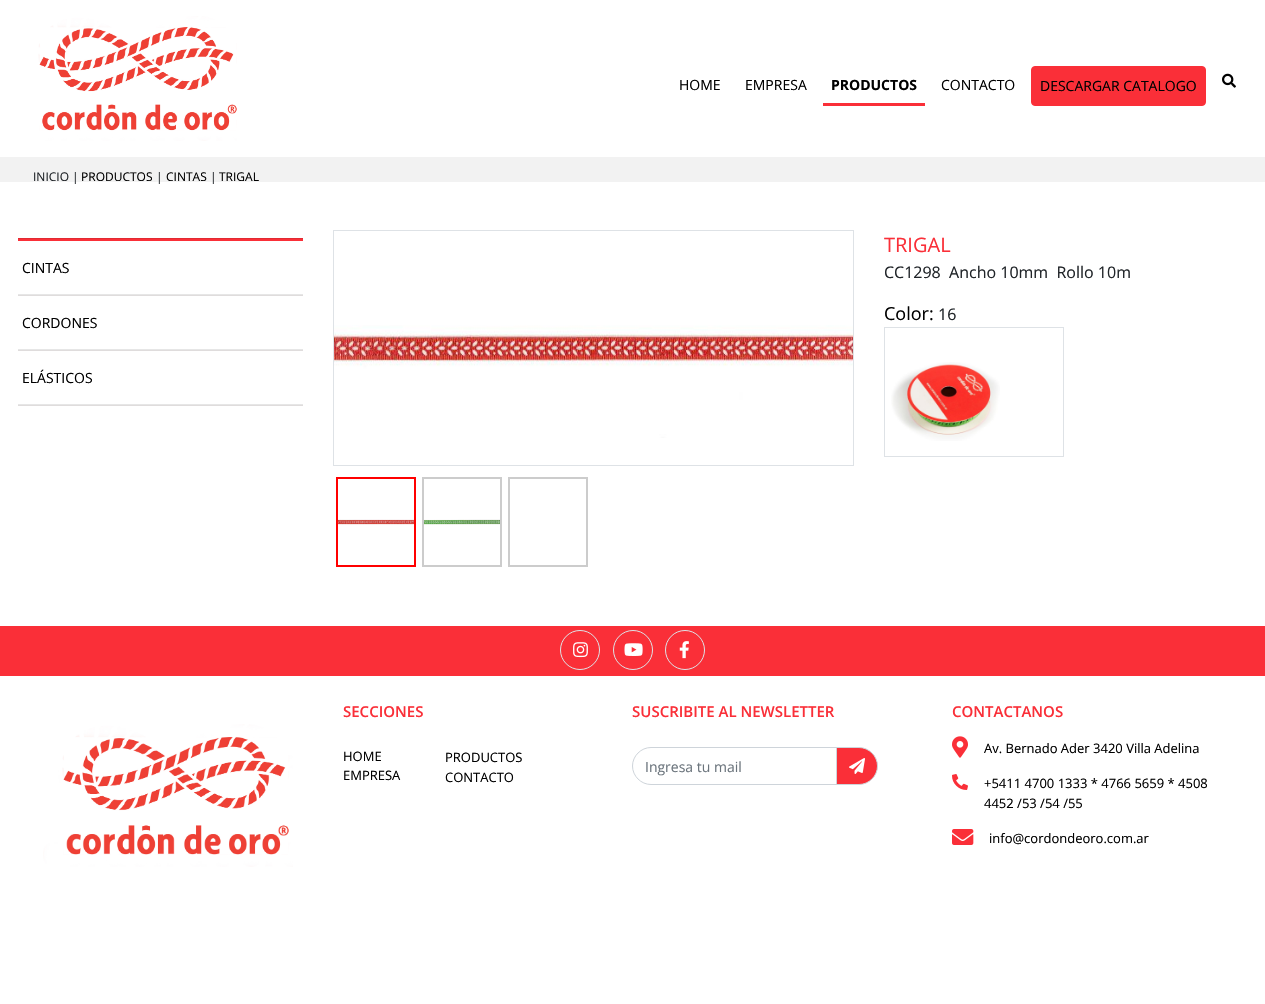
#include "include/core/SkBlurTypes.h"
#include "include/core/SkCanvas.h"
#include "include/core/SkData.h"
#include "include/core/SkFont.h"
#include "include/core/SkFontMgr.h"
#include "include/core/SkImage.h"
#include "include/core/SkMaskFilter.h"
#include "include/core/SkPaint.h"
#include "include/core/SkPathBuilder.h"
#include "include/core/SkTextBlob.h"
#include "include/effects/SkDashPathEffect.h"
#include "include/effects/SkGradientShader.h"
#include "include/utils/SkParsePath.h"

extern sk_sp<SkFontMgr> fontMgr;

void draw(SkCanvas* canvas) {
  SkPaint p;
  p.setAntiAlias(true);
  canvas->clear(SK_ColorWHITE);
  canvas->drawImageRect(SkImages::DeferredFromEncodedData(SkData::MakeFromFileName("images/1.png")), SkRect::MakeLTRB(38, 16, 237, 141), SkSamplingOptions());
  p.setColor(SkColorSetRGB(250, 47, 56));
  canvas->drawRect(SkRect::MakeLTRB(823, 103, 925, 106), p);
  canvas->drawRoundRect(SkRect::MakeLTRB(1031.5f, 66.5f, 1205.5f, 105.5f), 3.5f, 3.5f, p);
  p.setStyle(SkPaint::kStroke_Style);
  p.setStrokeWidth(1);
  canvas->drawRoundRect(SkRect::MakeLTRB(1031.5f, 66.5f, 1205.5f, 105.5f), 3.5f, 3.5f, p);
  canvas->drawImageRect(SkImages::DeferredFromEncodedData(SkData::MakeFromFileName("images/2.png")), SkRect::MakeLTRB(1222, 73, 1236, 88), SkSamplingOptions());
  p.setStyle(SkPaint::kFill_Style);
  p.setColor(SkColorSetRGB(242, 242, 242));
  canvas->drawRect(SkRect::MakeLTRB(0, 157, 1265, 182), p);
  p.setColor(SkColorSetRGB(250, 47, 56));
  canvas->drawRect(SkRect::MakeLTRB(18, 239, 303, 241), p);
  p.setColor(SkColorSetRGB(225, 42, 50));
  canvas->drawRect(SkRect::MakeLTRB(18, 238, 303, 239), p);
  p.setColor(SkColorSetRGB(230, 230, 230));
  canvas->drawRect(SkRect::MakeLTRB(18, 294, 303, 295), p);
  p.setColor(SkColorSetRGB(223, 220, 220));
  canvas->drawRect(SkRect::MakeLTRB(18, 295, 303, 296), p);
  p.setColor(SkColorSetRGB(230, 230, 230));
  canvas->drawRect(SkRect::MakeLTRB(18, 349, 303, 350), p);
  p.setColor(SkColorSetRGB(223, 220, 220));
  canvas->drawRect(SkRect::MakeLTRB(18, 350, 303, 351), p);
  p.setColor(SkColorSetRGB(230, 230, 230));
  canvas->drawRect(SkRect::MakeLTRB(18, 404, 303, 405), p);
  p.setColor(SkColorSetRGB(223, 220, 220));
  canvas->drawRect(SkRect::MakeLTRB(18, 405, 303, 406), p);
  canvas->drawImageRect(SkImages::DeferredFromEncodedData(SkData::MakeFromFileName("images/3.png")), SkRect::MakeLTRB(334, 325, 853, 438), SkSamplingOptions());
  p.setStyle(SkPaint::kStroke_Style);
  p.setColor(SkColorSetRGB(222, 226, 230));
  canvas->drawRect(SkRect::MakeLTRB(333.5f, 230.5f, 853.5f, 465.5f), p);
  canvas->drawImageRect(SkImages::DeferredFromEncodedData(SkData::MakeFromFileName("images/4.png")), SkRect::MakeLTRB(338, 519, 414, 525), SkSamplingOptions());
  p.setStrokeWidth(2);
  p.setColor(SkColorSetRGB(255, 0, 0));
  canvas->drawRect(SkRect::MakeLTRB(337, 478, 415, 566), p);
  canvas->drawImageRect(SkImages::DeferredFromEncodedData(SkData::MakeFromFileName("images/5.png")), SkRect::MakeLTRB(424, 519, 500, 525), SkSamplingOptions());
  p.setColor(SkColorSetRGB(204, 204, 204));
  canvas->drawRect(SkRect::MakeLTRB(423, 478, 501, 566), p);
  canvas->drawRect(SkRect::MakeLTRB(509, 478, 587, 566), p);
  canvas->drawImageRect(SkImages::DeferredFromEncodedData(SkData::MakeFromFileName("images/6.png")), SkRect::MakeLTRB(891, 362, 1000, 441), SkSamplingOptions());
  p.setStrokeWidth(1);
  p.setColor(SkColorSetRGB(222, 226, 230));
  canvas->drawRect(SkRect::MakeLTRB(884.5f, 327.5f, 1063.5f, 456.5f), p);
  p.setStyle(SkPaint::kFill_Style);
  p.setColor(SkColorSetRGB(250, 47, 56));
  canvas->drawRect(SkRect::MakeLTRB(0, 626, 1265, 676), p);
  p.setStyle(SkPaint::kStroke_Style);
  p.setColor(SkColorSetRGB(222, 226, 230));
  canvas->drawCircle(580, 650, 19.5f, p);
  canvas->drawImageRect(SkImages::DeferredFromEncodedData(SkData::MakeFromFileName("images/7.png")), SkRect::MakeLTRB(573, 642, 588, 658), SkSamplingOptions());
  canvas->drawCircle(633, 650, 19.5f, p);
  canvas->drawImageRect(SkImages::DeferredFromEncodedData(SkData::MakeFromFileName("images/8.png")), SkRect::MakeLTRB(624, 643, 643, 656), SkSamplingOptions());
  canvas->drawCircle(685, 650, 19.5f, p);
  canvas->drawImageRect(SkImages::DeferredFromEncodedData(SkData::MakeFromFileName("images/9.png")), SkRect::MakeLTRB(679, 641, 689, 659), SkSamplingOptions());
  canvas->drawImageRect(SkImages::DeferredFromEncodedData(SkData::MakeFromFileName("images/10.png")), SkRect::MakeLTRB(43, 724, 293, 867), SkSamplingOptions());
  p.setStyle(SkPaint::kFill_Style);
  p.setColor(SkColorSetRGB(250, 47, 56));
  canvas->drawPath(SkPathBuilder().moveTo(836.5f, 747.5f).lineTo(859, 747.5f).cubicTo(869, 747.5f, 877.5f, 756, 877.5f, 766).cubicTo(877.5f, 776, 869, 784.5f, 859, 784.5f).lineTo(836.5f, 784.5f).close().detach(), p);
  p.setStyle(SkPaint::kStroke_Style);
  p.setColor(SkColorSetRGB(206, 212, 218));
  canvas->drawPath(SkPathBuilder().moveTo(836.5f, 747.5f).lineTo(859, 747.5f).cubicTo(869, 747.5f, 877.5f, 756, 877.5f, 766).cubicTo(877.5f, 776, 869, 784.5f, 859, 784.5f).lineTo(836.5f, 784.5f).close().detach(), p);
  canvas->drawPath(SkPathBuilder().moveTo(651, 747.5f).lineTo(836.5f, 747.5f).lineTo(836.5f, 784.5f).lineTo(651, 784.5f).cubicTo(641, 784.5f, 632.5f, 776, 632.5f, 766).cubicTo(632.5f, 756, 641, 747.5f, 651, 747.5f).close().detach(), p);
  canvas->drawImageRect(SkImages::DeferredFromEncodedData(SkData::MakeFromFileName("images/11.png")), SkRect::MakeLTRB(849, 758, 865, 774), SkSamplingOptions());
  canvas->drawImageRect(SkImages::DeferredFromEncodedData(SkData::MakeFromFileName("images/12.png")), SkRect::MakeLTRB(952, 736, 968, 758), SkSamplingOptions());
  canvas->drawImageRect(SkImages::DeferredFromEncodedData(SkData::MakeFromFileName("images/13.png")), SkRect::MakeLTRB(952, 774, 968, 790), SkSamplingOptions());
  canvas->drawImageRect(SkImages::DeferredFromEncodedData(SkData::MakeFromFileName("images/14.png")), SkRect::MakeLTRB(952, 829, 974, 845), SkSamplingOptions());
  SkFont font1(fontMgr->matchFamilyStyle("Open Sans", SkFontStyle::Normal()), 14);
  font1.setSubpixel(true);
  p.setStyle(SkPaint::kFill_Style);
  p.setColor(SK_ColorBLACK);
  canvas->drawString("HOME", 679, 90, font1, p);
  canvas->drawString("EMPRESA", 745, 90, font1, p);
  SkFont font2(fontMgr->matchFamilyStyle("Open Sans", SkFontStyle::Bold()), 14);
  font2.setSubpixel(true);
  canvas->drawString("PRODUCTOS", 831, 90, font2, p);
  canvas->drawString("CONTACTO", 941, 90, font1, p);
  canvas->drawString("DESCARGAR CATALOGO", 1040, 91, font1, p);
  SkFont font3(fontMgr->matchFamilyStyle("Open Sans", SkFontStyle::Normal()), 12);
  font3.setSubpixel(true);
  p.setColor(SkColorSetRGB(33, 37, 41));
  canvas->drawString("INICIO |", 33, 181, font3, p);
  p.setColor(SK_ColorBLACK);
  canvas->drawString("PRODUCTOS", 81, 181, font3, p);
  p.setColor(SkColorSetRGB(33, 37, 41));
  canvas->drawString("|", 156, 181, font3, p);
  p.setColor(SK_ColorBLACK);
  canvas->drawString("CINTAS", 166, 181, font3, p);
  p.setColor(SkColorSetRGB(33, 37, 41));
  canvas->drawString("|", 210, 181, font3, p);
  p.setColor(SK_ColorBLACK);
  canvas->drawString("TRIGAL", 219, 181, font3, p);
  canvas->drawString("CINTAS", 22, 273, font1, p);
  canvas->drawString("CORDONES", 22, 328, font1, p);
  canvas->drawString("ELÁSTICOS", 22, 383, font1, p);
  SkFont font4(fontMgr->matchFamilyStyle("Open Sans", SkFontStyle::Normal()), 20);
  font4.setSubpixel(true);
  p.setColor(SkColorSetRGB(250, 47, 56));
  canvas->drawString("TRIGAL", 884, 252, font4, p);
  SkFont font5(fontMgr->matchFamilyStyle("Open Sans", SkFontStyle::Normal()), 16);
  font5.setSubpixel(true);
  p.setColor(SkColorSetRGB(33, 37, 41));
  canvas->drawString("CC1298  Ancho 10mm  Rollo 10m", 884, 278, font5, p);
  SkFont font6(fontMgr->matchFamilyStyle("Open Sans", SkFontStyle::Normal()), 18);
  font6.setSubpixel(true);
  p.setColor(SK_ColorBLACK);
  canvas->drawString("Color:", 884, 320, font6, p);
  p.setColor(SkColorSetRGB(33, 37, 41));
  canvas->drawString("16", 938, 320, font5, p);
  SkFont font7(fontMgr->matchFamilyStyle("Open Sans", SkFontStyle(600, SkFontStyle::kNormal_Width, SkFontStyle::kUpright_Slant)), 15);
  font7.setSubpixel(true);
  p.setColor(SkColorSetRGB(250, 47, 56));
  canvas->drawString("SECCIONES", 343, 717, font7, p);
  SkFont font8(fontMgr->matchFamilyStyle("Open Sans", SkFontStyle::Normal()), 13);
  font8.setSubpixel(true);
  p.setColor(SK_ColorBLACK);
  canvas->drawString("HOME", 343, 761, font8, p);
  canvas->drawString("EMPRESA", 343, 780, font8, p);
  canvas->drawString("PRODUCTOS", 445, 762, font8, p);
  canvas->drawString("CONTACTO", 445, 782, font8, p);
  p.setColor(SkColorSetRGB(250, 47, 56));
  canvas->drawString("SUSCRIBITE AL NEWSLETTER", 632, 717, font7, p);
  p.setColor(SkColorSetRGB(108, 117, 125));
  canvas->drawString("Ingresa tu mail", 645, 772, font1, p);
  p.setColor(SkColorSetRGB(250, 47, 56));
  canvas->drawString("CONTACTANOS", 952, 717, font7, p);
  p.setColor(SK_ColorBLACK);
  canvas->drawString("Av. Bernado Ader 3420 Villa Adelina", 984, 753, font8, p);
  canvas->drawString("+5411 4700 1333 * 4766 5659 * 4508", 984, 788, font8, p);
  canvas->drawString("4452 /53 /54 /55", 984, 808, font8, p);
  canvas->drawString("info@cordondeoro.com.ar", 989, 843, font8, p);
}
